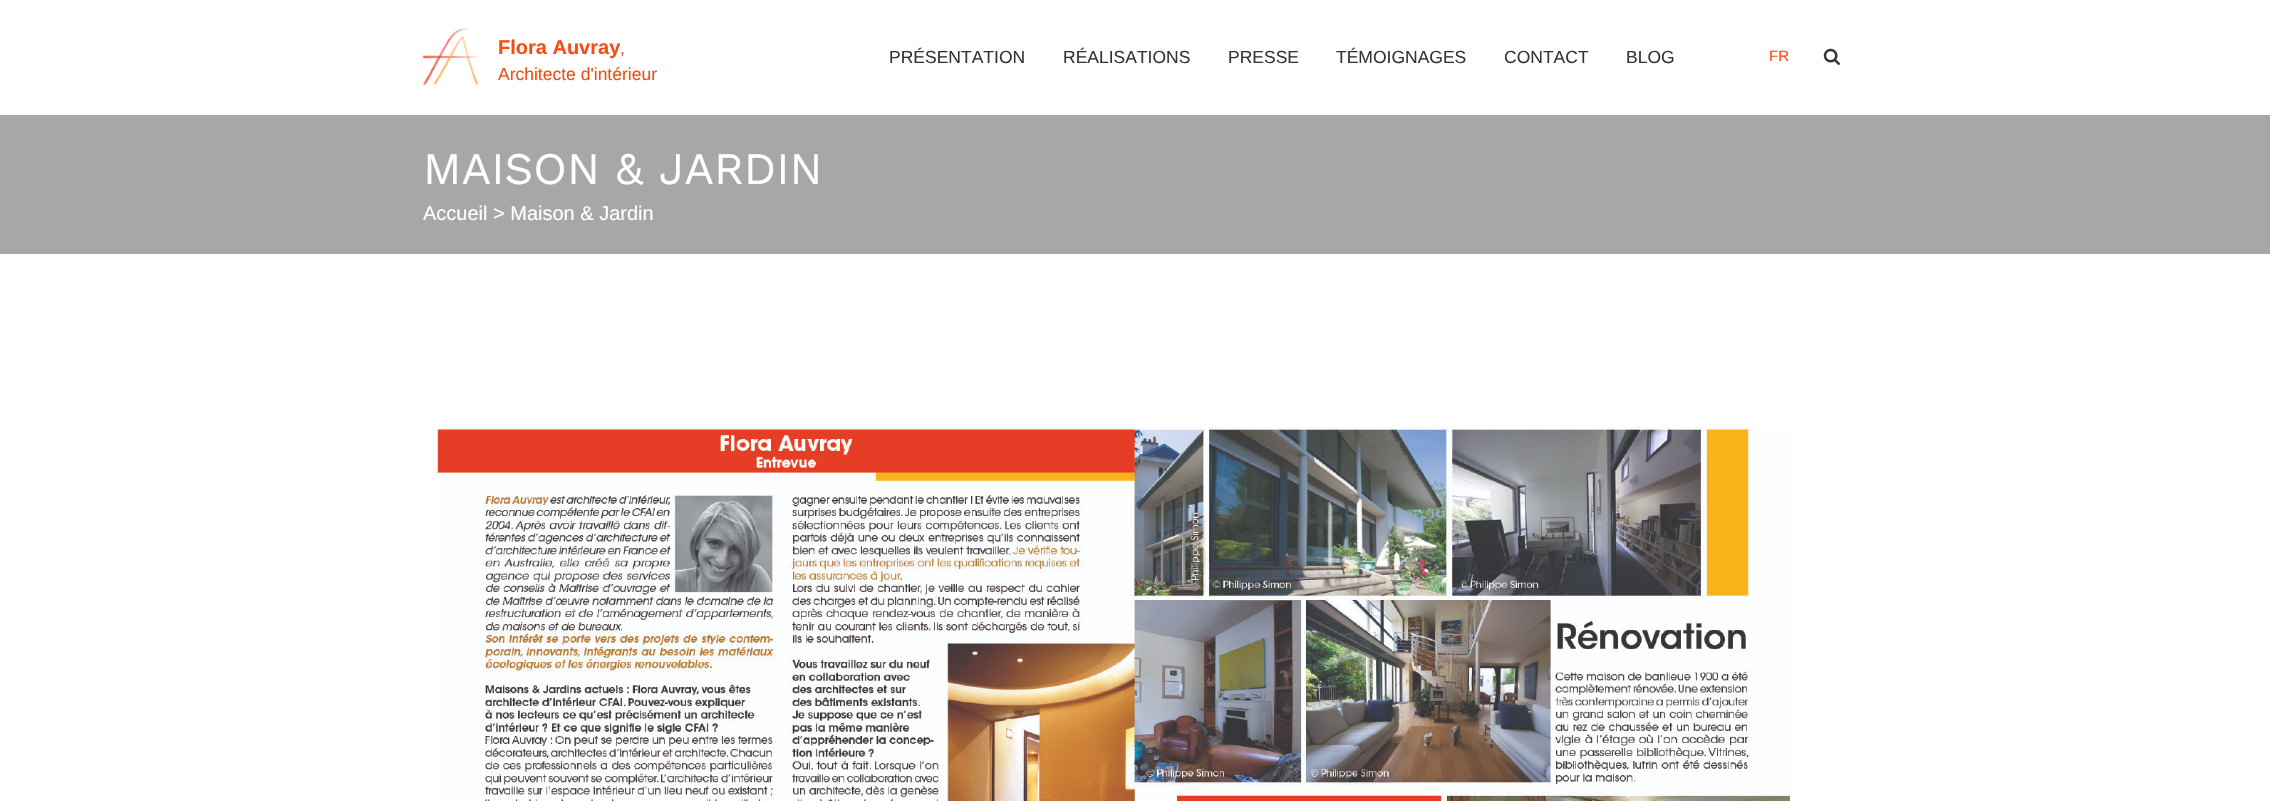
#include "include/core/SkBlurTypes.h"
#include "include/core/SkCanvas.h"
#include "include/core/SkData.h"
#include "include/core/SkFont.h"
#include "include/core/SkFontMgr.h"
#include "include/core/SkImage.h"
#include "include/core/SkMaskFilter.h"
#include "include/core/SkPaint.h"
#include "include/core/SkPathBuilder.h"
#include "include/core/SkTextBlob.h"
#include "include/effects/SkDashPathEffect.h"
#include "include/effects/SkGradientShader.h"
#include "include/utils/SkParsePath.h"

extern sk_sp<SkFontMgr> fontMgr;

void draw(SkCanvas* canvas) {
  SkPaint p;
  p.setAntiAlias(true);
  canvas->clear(SK_ColorWHITE);
  canvas->drawImageRect(SkImages::DeferredFromEncodedData(SkData::MakeFromFileName("images/1.png")), SkRect::MakeLTRB(422, 28, 479, 85), SkSamplingOptions());
  canvas->drawImageRect(SkImages::DeferredFromEncodedData(SkData::MakeFromFileName("images/2.png")), SkRect::MakeLTRB(1823, 48, 1840, 65), SkSamplingOptions());
  p.setColor(SkColorSetRGB(167, 167, 167));
  canvas->drawRect(SkRect::MakeLTRB(0, 115, 2270, 254), p);
  canvas->drawImageRect(SkImages::DeferredFromEncodedData(SkData::MakeFromFileName("images/3.png")), SkRect::MakeLTRB(434, 427, 1791, 801), SkSamplingOptions());
  SkFont font1(fontMgr->matchFamilyStyle("Liberation Sans", SkFontStyle::Bold()), 20);
  font1.setSubpixel(true);
  p.setColor(SkColorSetRGB(246, 75, 19));
  canvas->drawString("Flora Auvray", 498, 54, font1, p);
  SkFont font2(fontMgr->matchFamilyStyle("Liberation Sans", SkFontStyle::Normal()), 17.5f);
  font2.setSubpixel(true);
  canvas->drawString(",", 620, 54, font2, p);
  canvas->drawString("Architecte d'intérieur", 498, 80, font2, p);
  p.setColor(SkColorSetRGB(52, 52, 60));
  canvas->drawString("PRÉSENTATION", 889, 63, font2, p);
  canvas->drawString("RÉALISATIONS", 1063, 63, font2, p);
  canvas->drawString("PRESSE", 1228, 63, font2, p);
  canvas->drawString("TÉMOIGNAGES", 1336, 63, font2, p);
  canvas->drawString("CONTACT", 1504, 63, font2, p);
  canvas->drawString("BLOG", 1626, 63, font2, p);
  SkFont font3(fontMgr->matchFamilyStyle("Liberation Sans", SkFontStyle::Normal()), 15);
  font3.setSubpixel(true);
  p.setColor(SkColorSetRGB(246, 75, 19));
  canvas->drawString("FR", 1769, 61, font3, p);
  SkFont font4(fontMgr->matchFamilyStyle("Work Sans", SkFontStyle::Normal()), 45);
  font4.setSubpixel(true);
  p.setColor(SK_ColorWHITE);
  canvas->drawString("MAISON & JARDIN", 423, 184, font4, p);
  SkFont font5(fontMgr->matchFamilyStyle("Liberation Sans", SkFontStyle::Normal()), 20);
  font5.setSubpixel(true);
  canvas->drawString("Accueil > Maison & Jardin", 423, 220, font5, p);
}
